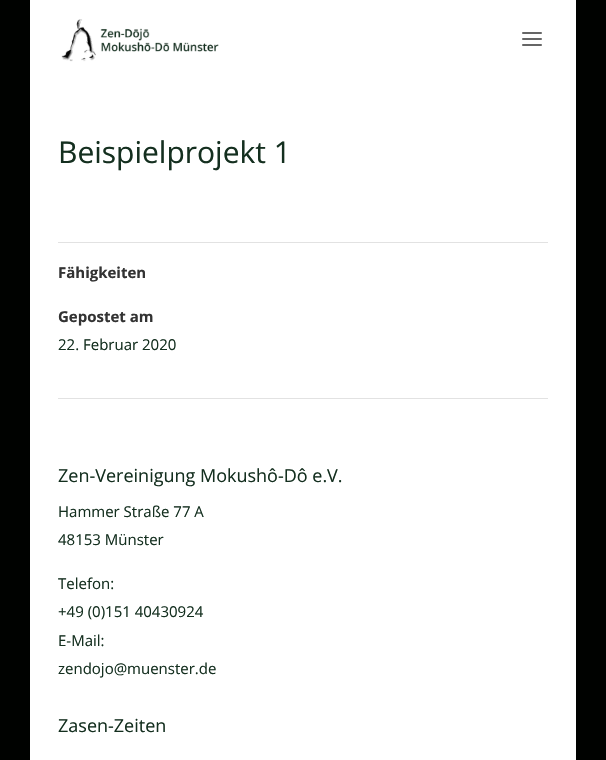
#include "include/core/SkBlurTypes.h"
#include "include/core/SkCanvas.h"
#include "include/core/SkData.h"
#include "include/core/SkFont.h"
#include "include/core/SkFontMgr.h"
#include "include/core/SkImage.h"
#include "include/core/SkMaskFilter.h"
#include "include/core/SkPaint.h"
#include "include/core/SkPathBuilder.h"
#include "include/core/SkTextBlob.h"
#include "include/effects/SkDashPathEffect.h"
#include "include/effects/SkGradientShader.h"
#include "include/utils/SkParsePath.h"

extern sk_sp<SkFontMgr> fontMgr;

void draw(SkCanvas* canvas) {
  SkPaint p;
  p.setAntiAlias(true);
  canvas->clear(SkColorSetRGB(0, 2, 0));
  p.setColor(SK_ColorWHITE);
  canvas->drawRect(SkRect::MakeLTRB(30, 0, 576, 760), p);
  canvas->drawImageRect(SkImages::DeferredFromEncodedData(SkData::MakeFromFileName("images/1.png")), SkRect::MakeLTRB(61, 19, 219, 62), SkSamplingOptions());
  canvas->drawImageRect(SkImages::DeferredFromEncodedData(SkData::MakeFromFileName("images/2.png")), SkRect::MakeLTRB(522, 32, 542, 46), SkSamplingOptions());
  p.setColor(SkColorSetRGB(226, 226, 226));
  canvas->drawRect(SkRect::MakeLTRB(58, 242, 548, 243), p);
  canvas->drawRect(SkRect::MakeLTRB(58, 398, 548, 399), p);
  SkFont font1(fontMgr->matchFamilyStyle("Open Sans", SkFontStyle::Normal()), 30);
  font1.setSubpixel(true);
  p.setColor(SkColorSetRGB(20, 47, 31));
  canvas->drawString("Beispielprojekt 1", 58, 163, font1, p);
  SkFont font2(fontMgr->matchFamilyStyle("Open Sans", SkFontStyle::Bold()), 15);
  font2.setSubpixel(true);
  p.setColor(SkColorSetRGB(51, 51, 51));
  canvas->drawString("Fähigkeiten", 58, 278, font2, p);
  canvas->drawString("Gepostet am", 58, 322, font2, p);
  SkFont font3(fontMgr->matchFamilyStyle("Open Sans", SkFontStyle::Normal()), 15);
  font3.setSubpixel(true);
  p.setColor(SkColorSetRGB(20, 47, 31));
  canvas->drawString("22. Februar 2020", 58, 350, font3, p);
  SkFont font4(fontMgr->matchFamilyStyle("Open Sans", SkFontStyle::Normal()), 18);
  font4.setSubpixel(true);
  canvas->drawString("Zen-Vereinigung Mokushô-Dô e.V.", 58, 482, font4, p);
  canvas->drawString("Hammer Straße 77 A", 58, 517, font3, p);
  canvas->drawString("48153 Münster", 58, 545, font3, p);
  canvas->drawString("Telefon:", 58, 589, font3, p);
  canvas->drawString("+49 (0)151 40430924", 58, 617, font3, p);
  canvas->drawString("E-Mail:", 58, 646, font3, p);
  canvas->drawString("zendojo@muenster.de", 58, 674, font3, p);
  canvas->drawString("Zasen-Zeiten", 58, 732, font4, p);
}
